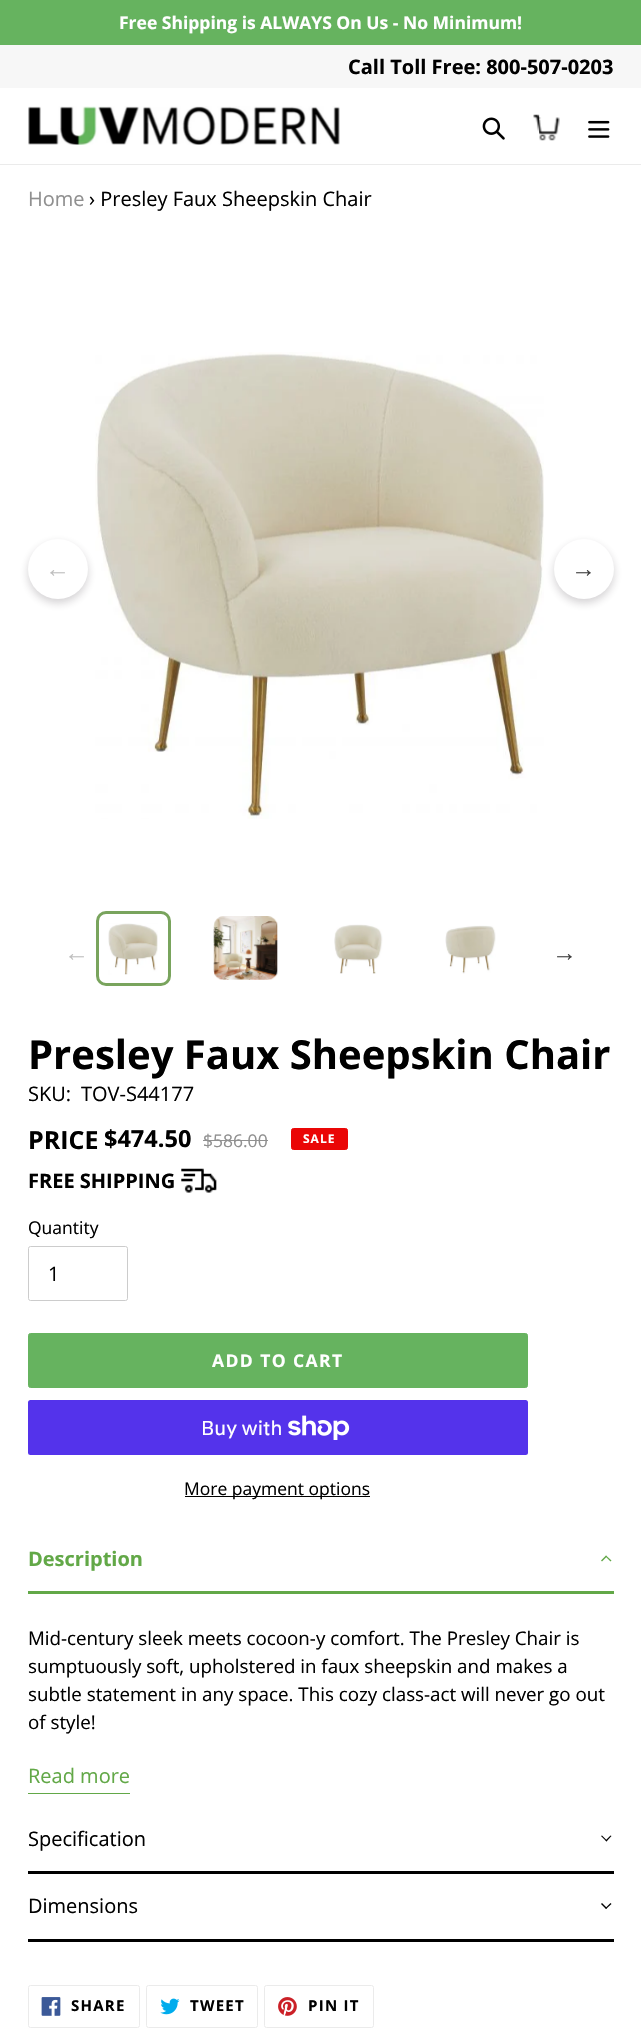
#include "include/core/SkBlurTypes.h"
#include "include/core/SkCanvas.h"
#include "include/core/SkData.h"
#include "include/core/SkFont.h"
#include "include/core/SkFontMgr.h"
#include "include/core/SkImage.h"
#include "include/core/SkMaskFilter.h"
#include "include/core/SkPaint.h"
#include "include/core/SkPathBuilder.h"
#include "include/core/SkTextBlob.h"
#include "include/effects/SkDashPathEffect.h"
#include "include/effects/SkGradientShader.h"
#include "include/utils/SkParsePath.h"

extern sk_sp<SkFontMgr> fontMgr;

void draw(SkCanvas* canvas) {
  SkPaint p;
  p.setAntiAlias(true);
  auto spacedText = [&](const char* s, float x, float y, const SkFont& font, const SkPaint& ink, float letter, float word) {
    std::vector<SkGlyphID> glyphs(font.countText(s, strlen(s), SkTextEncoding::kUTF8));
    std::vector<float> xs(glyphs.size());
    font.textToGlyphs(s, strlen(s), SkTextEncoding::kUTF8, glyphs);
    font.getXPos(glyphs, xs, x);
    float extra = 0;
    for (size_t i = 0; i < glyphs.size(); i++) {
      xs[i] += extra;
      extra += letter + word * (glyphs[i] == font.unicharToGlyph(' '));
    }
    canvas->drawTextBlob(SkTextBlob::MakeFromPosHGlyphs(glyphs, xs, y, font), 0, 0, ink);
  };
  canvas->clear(SK_ColorWHITE);
  p.setColor(SkColorSetRGB(102, 179, 95));
  canvas->drawRect(SkRect::MakeLTRB(0, 0, 641, 45), p);
  p.setColor(SkColorSetRGB(247, 247, 247));
  canvas->drawRect(SkRect::MakeLTRB(0, 45, 641, 88), p);
  p.setColor(SkColorSetRGB(235, 235, 235));
  canvas->drawRect(SkRect::MakeLTRB(0, 164, 641, 165), p);
  canvas->drawImageRect(SkImages::DeferredFromEncodedData(SkData::MakeFromFileName("images/1.png")), SkRect::MakeLTRB(28, 106, 340, 145), SkSamplingOptions());
  canvas->drawImageRect(SkImages::DeferredFromEncodedData(SkData::MakeFromFileName("images/2.png")), SkRect::MakeLTRB(482, 117, 505, 140), SkSamplingOptions());
  canvas->drawImageRect(SkImages::DeferredFromEncodedData(SkData::MakeFromFileName("images/3.png")), SkRect::MakeLTRB(533, 114, 560, 141), SkSamplingOptions());
  canvas->drawImageRect(SkImages::DeferredFromEncodedData(SkData::MakeFromFileName("images/4.png")), SkRect::MakeLTRB(588, 120, 610, 138), SkSamplingOptions());
  canvas->drawImageRect(SkImages::DeferredFromEncodedData(SkData::MakeFromFileName("images/5.png")), SkRect::MakeLTRB(95, 352, 544, 819), SkSamplingOptions());
  p.setColor(SkColorSetARGB(51, 34, 25, 36));
  p.setMaskFilter(SkMaskFilter::MakeBlur(kNormal_SkBlurStyle, 4));
  canvas->drawRoundRect(SkRect::MakeLTRB(28, 543, 88, 603), 30, 30, p);
  p.setMaskFilter(nullptr);
  p.setColor(SK_ColorWHITE);
  canvas->drawCircle(58, 569, 30, p);
  p.setColor(SkColorSetARGB(51, 34, 25, 36));
  p.setMaskFilter(SkMaskFilter::MakeBlur(kNormal_SkBlurStyle, 4));
  canvas->drawRoundRect(SkRect::MakeLTRB(554, 543, 614, 603), 30, 30, p);
  p.setMaskFilter(nullptr);
  p.setColor(SK_ColorWHITE);
  canvas->drawCircle(584, 569, 30, p);
  p.setStyle(SkPaint::kStroke_Style);
  p.setStrokeWidth(3);
  p.setColor(SkColorSetRGB(121, 164, 93));
  canvas->drawRoundRect(SkRect::MakeLTRB(97.5f, 912.5f, 169.5f, 984.5f), 8.5f, 8.5f, p);
  canvas->drawImageRect(SkImages::DeferredFromEncodedData(SkData::MakeFromFileName("images/6.png")), SkRect::MakeLTRB(108, 923, 158, 975), SkSamplingOptions());
  canvas->drawImageRect(SkImages::DeferredFromEncodedData(SkData::MakeFromFileName("images/7.png")), SkRect::MakeLTRB(213, 916, 278, 980), SkSamplingOptions());
  canvas->drawImageRect(SkImages::DeferredFromEncodedData(SkData::MakeFromFileName("images/8.png")), SkRect::MakeLTRB(334, 924, 383, 974), SkSamplingOptions());
  canvas->drawImageRect(SkImages::DeferredFromEncodedData(SkData::MakeFromFileName("images/9.png")), SkRect::MakeLTRB(445, 925, 496, 974), SkSamplingOptions());
  p.setStyle(SkPaint::kFill_Style);
  p.setColor(SkColorSetRGB(144, 144, 144));
  canvas->drawRect(SkRect::MakeLTRB(203, 1140, 268, 1141), p);
  p.setColor(SkColorSetRGB(234, 6, 6));
  canvas->drawRoundRect(SkRect::MakeLTRB(291.5f, 1128.5f, 347.5f, 1149.5f), 2, 2, p);
  p.setStyle(SkPaint::kStroke_Style);
  p.setStrokeWidth(1);
  canvas->drawRoundRect(SkRect::MakeLTRB(291.5f, 1128.5f, 347.5f, 1149.5f), 2, 2, p);
  canvas->drawImageRect(SkImages::DeferredFromEncodedData(SkData::MakeFromFileName("images/10.png")), SkRect::MakeLTRB(181, 1168, 217, 1193), SkSamplingOptions());
  p.setColor(SkColorSetRGB(204, 204, 204));
  canvas->drawRoundRect(SkRect::MakeLTRB(28.5f, 1246.5f, 127.5f, 1300.5f), 2, 2, p);
  p.setStyle(SkPaint::kFill_Style);
  p.setColor(SkColorSetRGB(102, 179, 95));
  canvas->drawRoundRect(SkRect::MakeLTRB(28.5f, 1333.5f, 527.5f, 1387.5f), 2, 2, p);
  p.setStyle(SkPaint::kStroke_Style);
  canvas->drawRoundRect(SkRect::MakeLTRB(28.5f, 1333.5f, 527.5f, 1387.5f), 2, 2, p);
  p.setStyle(SkPaint::kFill_Style);
  p.setColor(SkColorSetRGB(84, 51, 235));
  canvas->drawRoundRect(SkRect::MakeLTRB(28, 1400, 528, 1455), 2.5f, 2.5f, p);
  canvas->drawImageRect(SkImages::DeferredFromEncodedData(SkData::MakeFromFileName("images/11.png")), SkRect::MakeLTRB(288, 1415, 350, 1440), SkSamplingOptions());
  p.setColor(SK_ColorBLACK);
  canvas->drawRect(SkRect::MakeLTRB(185, 1496, 370, 1497), p);
  p.setColor(SkColorSetRGB(98, 168, 71));
  canvas->drawRect(SkRect::MakeLTRB(28, 1591, 614, 1594), p);
  canvas->drawPath(SkPathBuilder().moveTo(602, 1561.5f).lineTo(601, 1560.5f).lineTo(606, 1555.5f).lineTo(607, 1556.5f).close().detach(), p);
  canvas->drawPath(SkPathBuilder().moveTo(610.5f, 1561.5f).lineTo(605.5f, 1556.5f).lineTo(606, 1555.5f).lineTo(611.5f, 1560.5f).close().detach(), p);
  canvas->drawRect(SkRect::MakeLTRB(28, 1793, 130, 1794), p);
  p.setColor(SK_ColorBLACK);
  canvas->drawRect(SkRect::MakeLTRB(28, 1871, 614, 1874), p);
  canvas->drawPath(SkPathBuilder().moveTo(610.5f, 1835.5f).lineTo(611.5f, 1836).lineTo(606.5f, 1841.5f).lineTo(605.5f, 1840.5f).close().detach(), p);
  canvas->drawPath(SkPathBuilder().moveTo(602, 1835.5f).lineTo(607, 1840.5f).lineTo(606.5f, 1841.5f).lineTo(601, 1836).close().detach(), p);
  canvas->drawRect(SkRect::MakeLTRB(28, 1939, 614, 1942), p);
  canvas->drawPath(SkPathBuilder().moveTo(610.5f, 1903).lineTo(611.5f, 1904).lineTo(606, 1909).lineTo(605.5f, 1908).close().detach(), p);
  canvas->drawPath(SkPathBuilder().moveTo(602, 1903).lineTo(607, 1908).lineTo(606, 1909).lineTo(601, 1904).close().detach(), p);
  p.setStyle(SkPaint::kStroke_Style);
  p.setColor(SkColorSetRGB(235, 235, 235));
  canvas->drawRoundRect(SkRect::MakeLTRB(28.5f, 1985.5f, 139.5f, 2027.5f), 2, 2, p);
  canvas->drawImageRect(SkImages::DeferredFromEncodedData(SkData::MakeFromFileName("images/12.png")), SkRect::MakeLTRB(41, 1997, 61, 2016), SkSamplingOptions());
  canvas->drawRoundRect(SkRect::MakeLTRB(146.5f, 1985.5f, 257.5f, 2027.5f), 2, 2, p);
  canvas->drawImageRect(SkImages::DeferredFromEncodedData(SkData::MakeFromFileName("images/13.png")), SkRect::MakeLTRB(160, 1998, 180, 2015), SkSamplingOptions());
  canvas->drawRoundRect(SkRect::MakeLTRB(264.5f, 1985.5f, 373.5f, 2027.5f), 2, 2, p);
  canvas->drawImageRect(SkImages::DeferredFromEncodedData(SkData::MakeFromFileName("images/14.png")), SkRect::MakeLTRB(278, 1997, 297, 2016), SkSamplingOptions());
  SkFont font1(fontMgr->matchFamilyStyle("Open Sans", SkFontStyle::Bold()), 17.5f);
  font1.setSubpixel(true);
  p.setStyle(SkPaint::kFill_Style);
  p.setColor(SK_ColorWHITE);
  canvas->drawString("Free Shipping is ALWAYS On Us - No Minimum!", 119, 29, font1, p);
  SkFont font2(fontMgr->matchFamilyStyle("Open Sans", SkFontStyle::Bold()), 20);
  font2.setSubpixel(true);
  p.setColor(SK_ColorBLACK);
  canvas->drawString("Call Toll Free: 800-507-0203", 348, 74, font2, p);
  SkFont font3(fontMgr->matchFamilyStyle("Open Sans", SkFontStyle::Normal()), 20);
  font3.setSubpixel(true);
  p.setColor(SkColorSetRGB(144, 144, 144));
  canvas->drawString("Home", 28, 206, font3, p);
  p.setColor(SK_ColorBLACK);
  canvas->drawString("› Presley Faux Sheepskin Chair", 89, 206, font3, p);
  SkFont font4(fontMgr->matchFamilyStyle("Liberation Serif", SkFontStyle::Normal()), 25);
  font4.setSubpixel(true);
  p.setColor(SkColorSetRGB(191, 191, 191));
  canvas->drawString("←", 45, 577, font4, p);
  p.setColor(SkColorSetRGB(64, 64, 64));
  canvas->drawString("→", 571, 577, font4, p);
  p.setColor(SkColorSetRGB(191, 191, 191));
  canvas->drawString("←", 64, 961, font4, p);
  p.setColor(SkColorSetRGB(64, 64, 64));
  canvas->drawString("→", 552, 961, font4, p);
  SkFont font5(fontMgr->matchFamilyStyle("Open Sans", SkFontStyle::Bold()), 40);
  font5.setSubpixel(true);
  p.setColor(SK_ColorBLACK);
  canvas->drawString("Presley Faux Sheepskin Chair", 28, 1069, font5, p);
  canvas->drawString("SKU:", 28, 1101, font3, p);
  canvas->drawString("TOV-S44177", 81, 1101, font3, p);
  SkFont font6(fontMgr->matchFamilyStyle("Open Sans", SkFontStyle::Bold()), 25);
  font6.setSubpixel(true);
  canvas->drawString("PRICE", 28, 1149, font6, p);
  SkFont font7(fontMgr->matchFamilyStyle("Open Sans", SkFontStyle::Bold()), 23.5f);
  font7.setSubpixel(true);
  canvas->drawString("$474.50", 104, 1147, font7, p);
  SkFont font8(fontMgr->matchFamilyStyle("Open Sans", SkFontStyle::Normal()), 17.5f);
  font8.setSubpixel(true);
  p.setColor(SkColorSetRGB(144, 144, 144));
  canvas->drawString("$586.00", 203, 1147, font8, p);
  SkFont font9(fontMgr->matchFamilyStyle("Open Sans", SkFontStyle::Bold()), 12);
  font9.setSubpixel(true);
  p.setColor(SK_ColorWHITE);
  spacedText("SALE", 303, 1143, font9, p, 1, 0);
  p.setColor(SK_ColorBLACK);
  canvas->drawString("FREE SHIPPING", 28, 1188, font2, p);
  canvas->drawString("Quantity", 28, 1234, font8, p);
  canvas->drawString("1", 48, 1281, font3, p);
  p.setColor(SK_ColorWHITE);
  spacedText("ADD TO CART", 212, 1367, font1, p, 1.4f, 0);
  SkFont font10(fontMgr->matchFamilyStyle("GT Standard", SkFontStyle::Normal()), 20);
  font10.setSubpixel(true);
  canvas->drawString("Buy with", 201, 1435, font10, p);
  p.setColor(SK_ColorBLACK);
  canvas->drawString("More payment options", 184, 1495, font8, p);
  p.setColor(SkColorSetRGB(98, 168, 71));
  canvas->drawString("Description", 28, 1566, font2, p);
  SkFont font11(fontMgr->matchFamilyStyle("Open Sans", SkFontStyle::Normal()), 18.75f);
  font11.setSubpixel(true);
  p.setColor(SK_ColorBLACK);
  canvas->drawString("Mid-century sleek meets cocoon-y comfort. The Presley Chair is", 28, 1645, font11, p);
  canvas->drawString("sumptuously soft, upholstered in faux sheepskin and makes a", 28, 1673, font11, p);
  canvas->drawString("subtle statement in any space. This cozy class-act will never go out", 28, 1701, font11, p);
  canvas->drawString("of style!", 28, 1729, font11, p);
  p.setColor(SkColorSetRGB(98, 168, 71));
  canvas->drawString("Read more", 28, 1783, font3, p);
  p.setColor(SK_ColorBLACK);
  canvas->drawString("Specification", 28, 1846, font3, p);
  canvas->drawString("Dimensions", 28, 1913, font3, p);
  SkFont font12(fontMgr->matchFamilyStyle("Open Sans", SkFontStyle::Bold()), 15);
  font12.setSubpixel(true);
  spacedText("SHARE", 71, 2011, font12, p, 1.25f, 0);
  spacedText("TWEET", 190, 2011, font12, p, 1.25f, 0);
  spacedText("PIN IT", 308, 2011, font12, p, 1.25f, 0);
}
